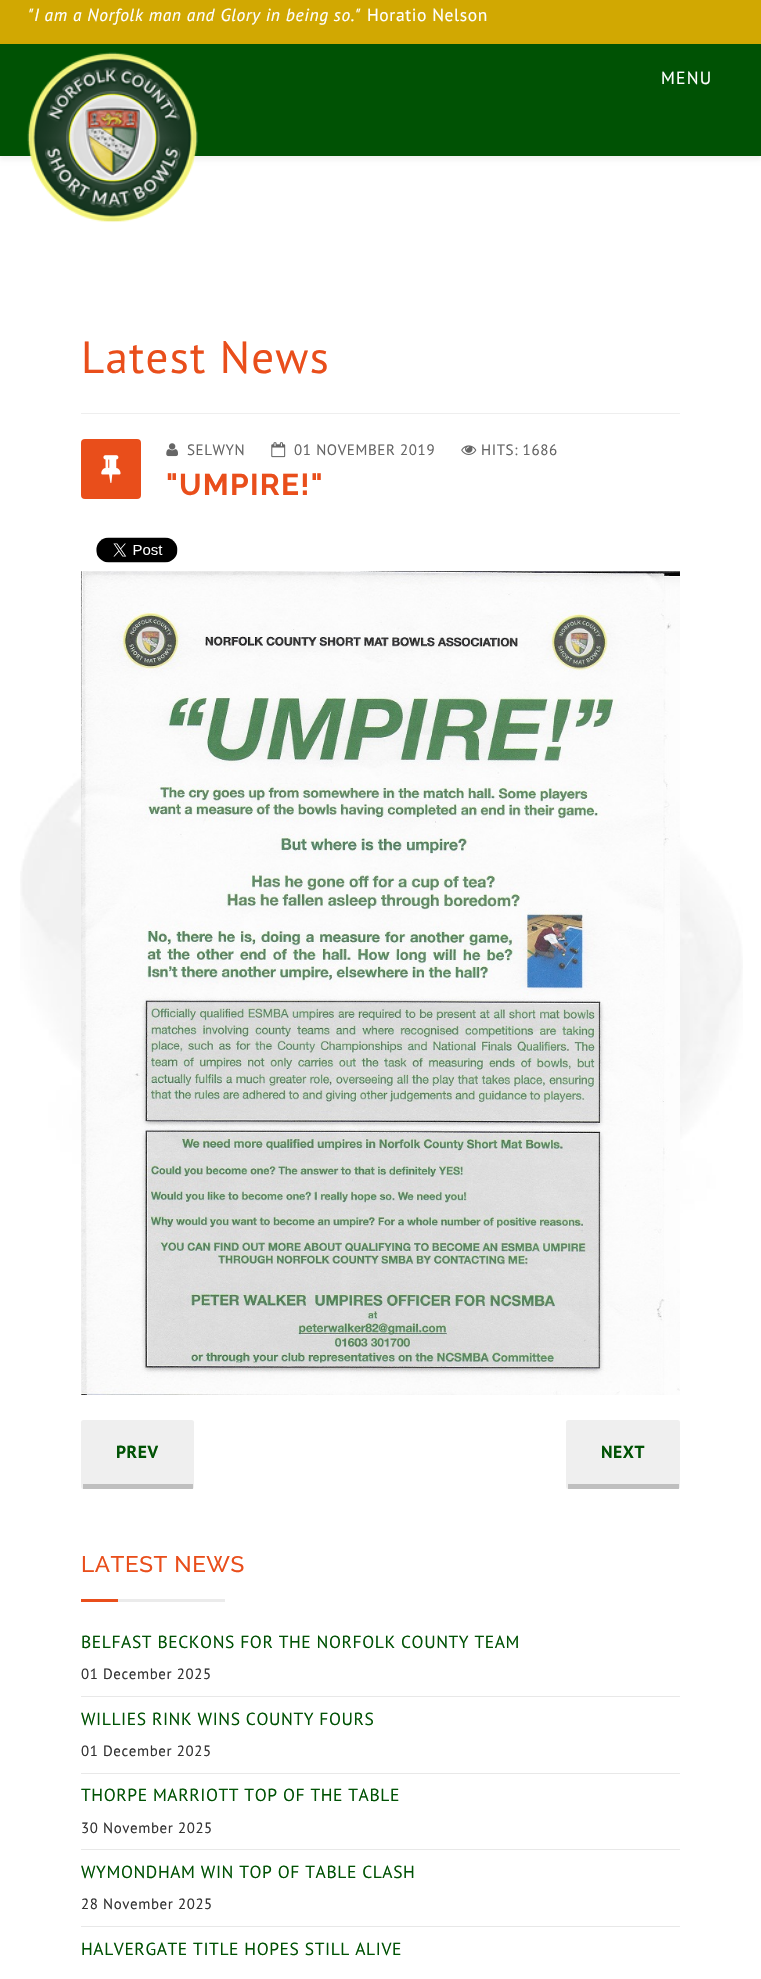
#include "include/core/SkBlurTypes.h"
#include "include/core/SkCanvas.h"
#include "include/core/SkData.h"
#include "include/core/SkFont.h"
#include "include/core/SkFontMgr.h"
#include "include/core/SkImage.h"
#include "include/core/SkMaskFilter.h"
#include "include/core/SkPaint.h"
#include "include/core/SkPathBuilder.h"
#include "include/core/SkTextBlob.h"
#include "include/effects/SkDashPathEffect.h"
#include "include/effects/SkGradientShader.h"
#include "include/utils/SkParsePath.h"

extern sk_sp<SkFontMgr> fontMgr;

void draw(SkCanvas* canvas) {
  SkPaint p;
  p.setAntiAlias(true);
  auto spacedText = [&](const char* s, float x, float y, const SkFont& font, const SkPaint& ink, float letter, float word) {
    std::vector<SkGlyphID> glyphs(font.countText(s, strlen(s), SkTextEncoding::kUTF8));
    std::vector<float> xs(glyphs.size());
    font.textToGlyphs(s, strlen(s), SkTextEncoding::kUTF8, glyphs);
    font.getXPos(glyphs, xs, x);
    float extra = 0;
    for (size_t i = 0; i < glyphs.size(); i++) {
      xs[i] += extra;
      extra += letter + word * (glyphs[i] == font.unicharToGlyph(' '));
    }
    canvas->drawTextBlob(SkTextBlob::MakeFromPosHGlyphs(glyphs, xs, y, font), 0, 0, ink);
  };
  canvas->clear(SK_ColorWHITE);
  p.setColor(SkColorSetRGB(209, 168, 2));
  canvas->drawRect(SkRect::MakeLTRB(0, 0, 761, 44), p);
  p.setColor(SkColorSetARGB(13, 0, 0, 0));
  p.setMaskFilter(SkMaskFilter::MakeBlur(kNormal_SkBlurStyle, 2));
  canvas->drawRect(SkRect::MakeLTRB(0, 48, 761, 160), p);
  p.setMaskFilter(nullptr);
  p.setColor(SkColorSetRGB(0, 82, 4));
  canvas->drawRect(SkRect::MakeLTRB(0, 44, 761, 156), p);
  canvas->drawImageRect(SkImages::DeferredFromEncodedData(SkData::MakeFromFileName("images/1.png")), SkRect::MakeLTRB(27, 52, 198, 223), SkSamplingOptions());
  canvas->drawImageRect(SkImages::DeferredFromEncodedData(SkData::MakeFromFileName("images/2.png")), SkRect::MakeLTRB(20, 737, 743, 1213), SkSamplingOptions());
  p.setColor(SkColorSetRGB(238, 238, 238));
  canvas->drawRect(SkRect::MakeLTRB(81, 413, 680, 414), p);
  p.setColor(SkColorSetRGB(233, 78, 27));
  canvas->drawRoundRect(SkRect::MakeLTRB(81, 439, 141, 499), 4, 4, p);
  canvas->drawImageRect(SkImages::DeferredFromEncodedData(SkData::MakeFromFileName("images/3.png")), SkRect::MakeLTRB(101, 455, 121, 483), SkSamplingOptions());
  canvas->drawImageRect(SkImages::DeferredFromEncodedData(SkData::MakeFromFileName("images/4.png")), SkRect::MakeLTRB(166, 443, 178, 457), SkSamplingOptions());
  canvas->drawImageRect(SkImages::DeferredFromEncodedData(SkData::MakeFromFileName("images/5.png")), SkRect::MakeLTRB(271, 442, 286, 458), SkSamplingOptions());
  canvas->drawImageRect(SkImages::DeferredFromEncodedData(SkData::MakeFromFileName("images/6.png")), SkRect::MakeLTRB(461, 445, 477, 455), SkSamplingOptions());
  canvas->drawImageRect(SkImages::DeferredFromEncodedData(SkData::MakeFromFileName("images/7.png")), SkRect::MakeLTRB(96, 537, 178, 563), SkSamplingOptions());
  canvas->drawImageRect(SkImages::DeferredFromEncodedData(SkData::MakeFromFileName("images/8.png")), SkRect::MakeLTRB(81, 571, 680, 1395), SkSamplingOptions());
  p.setColor(SkColorSetRGB(239, 239, 239));
  canvas->drawRoundRect(SkRect::MakeLTRB(81, 1420, 194, 1489), 2.5f, 2.5f, p);
  p.setColor(SkColorSetARGB(51, 0, 0, 0));
  canvas->drawRect(SkRect::MakeLTRB(83, 1484, 193, 1489), p);
  p.setColor(SkColorSetRGB(239, 239, 239));
  canvas->drawRoundRect(SkRect::MakeLTRB(566, 1420, 680, 1489), 2.5f, 2.5f, p);
  p.setColor(SkColorSetARGB(51, 0, 0, 0));
  canvas->drawRect(SkRect::MakeLTRB(568, 1484, 679, 1489), p);
  p.setColor(SkColorSetRGB(233, 78, 27));
  canvas->drawRect(SkRect::MakeLTRB(81, 1599, 118, 1602), p);
  p.setColor(SkColorSetRGB(235, 235, 235));
  canvas->drawRect(SkRect::MakeLTRB(118, 1599, 225, 1602), p);
  p.setColor(SkColorSetRGB(232, 232, 232));
  canvas->drawRect(SkRect::MakeLTRB(81, 1696, 680, 1697), p);
  canvas->drawRect(SkRect::MakeLTRB(81, 1773, 680, 1774), p);
  canvas->drawRect(SkRect::MakeLTRB(81, 1849, 680, 1850), p);
  canvas->drawRect(SkRect::MakeLTRB(81, 1926, 680, 1927), p);
  SkFont font1(fontMgr->matchFamilyStyle("PT Sans", SkFontStyle::Italic()), 17.5f);
  font1.setSubpixel(true);
  p.setColor(SK_ColorWHITE);
  spacedText("\"I am a Norfolk man and Glory in being so.\"", 28, 21, font1, p, 0.6f, 0);
  SkFont font2(fontMgr->matchFamilyStyle("PT Sans", SkFontStyle::Normal()), 17.5f);
  font2.setSubpixel(true);
  spacedText("Horatio Nelson", 367, 21, font2, p, 0.6f, 0);
  spacedText("MENU", 661, 84, font2, p, 1.25f, 0);
  SkFont font3(fontMgr->matchFamilyStyle("PT Sans", SkFontStyle::Normal()), 45);
  font3.setSubpixel(true);
  p.setColor(SkColorSetRGB(233, 78, 27));
  spacedText("Latest News", 81, 373, font3, p, 1.25f, 0);
  SkFont font4(fontMgr->matchFamilyStyle("PT Sans", SkFontStyle::Normal()), 15);
  font4.setSubpixel(true);
  p.setColor(SkColorSetRGB(102, 102, 102));
  spacedText("SELWYN", 187, 455, font4, p, 0.6f, 0);
  spacedText("01 NOVEMBER 2019", 294, 455, font4, p, 0.6f, 0);
  spacedText("HITS: 1686", 481, 455, font4, p, 0.6f, 0);
  SkFont font5(fontMgr->matchFamilyStyle("Raleway", SkFontStyle::Bold()), 30);
  font5.setSubpixel(true);
  p.setColor(SkColorSetRGB(233, 78, 27));
  spacedText("\"UMPIRE!\"", 166, 495, font5, p, 1.25f, 0);
  SkFont font6(fontMgr->matchFamilyStyle("PT Sans", SkFontStyle::Bold()), 17.5f);
  font6.setSubpixel(true);
  p.setColor(SkColorSetRGB(0, 82, 4));
  spacedText("PREV", 116, 1458, font6, p, 0.6f, 0);
  spacedText("NEXT", 601, 1458, font6, p, 0.6f, 0);
  SkFont font7(fontMgr->matchFamilyStyle("Raleway", SkFontStyle(500, SkFontStyle::kNormal_Width, SkFontStyle::kUpright_Slant)), 22.5f);
  font7.setSubpixel(true);
  p.setColor(SkColorSetRGB(233, 78, 27));
  spacedText("LATEST NEWS", 81, 1572, font7, p, 0.6f, 0);
  p.setColor(SkColorSetRGB(0, 82, 4));
  spacedText("BELFAST BECKONS FOR THE NORFOLK COUNTY TEAM", 81, 1648, font2, p, 0.6f, 0);
  SkFont font8(fontMgr->matchFamilyStyle("PT Sans", SkFontStyle::Normal()), 14.9f);
  font8.setSubpixel(true);
  p.setColor(SkColorSetRGB(51, 51, 51));
  spacedText("01 December 2025", 81, 1679, font8, p, 0.6f, 0);
  p.setColor(SkColorSetRGB(0, 82, 4));
  spacedText("WILLIES RINK WINS COUNTY FOURS", 81, 1725, font2, p, 0.6f, 0);
  p.setColor(SkColorSetRGB(51, 51, 51));
  spacedText("01 December 2025", 81, 1756, font8, p, 0.6f, 0);
  p.setColor(SkColorSetRGB(0, 82, 4));
  spacedText("THORPE MARRIOTT TOP OF THE TABLE", 81, 1801, font2, p, 0.6f, 0);
  p.setColor(SkColorSetRGB(51, 51, 51));
  spacedText("30 November 2025", 81, 1833, font8, p, 0.6f, 0);
  p.setColor(SkColorSetRGB(0, 82, 4));
  spacedText("WYMONDHAM WIN TOP OF TABLE CLASH", 81, 1878, font2, p, 0.6f, 0);
  p.setColor(SkColorSetRGB(51, 51, 51));
  spacedText("28 November 2025", 81, 1909, font8, p, 0.6f, 0);
  p.setColor(SkColorSetRGB(0, 82, 4));
  spacedText("HALVERGATE TITLE HOPES STILL ALIVE", 81, 1955, font2, p, 0.6f, 0);
}
